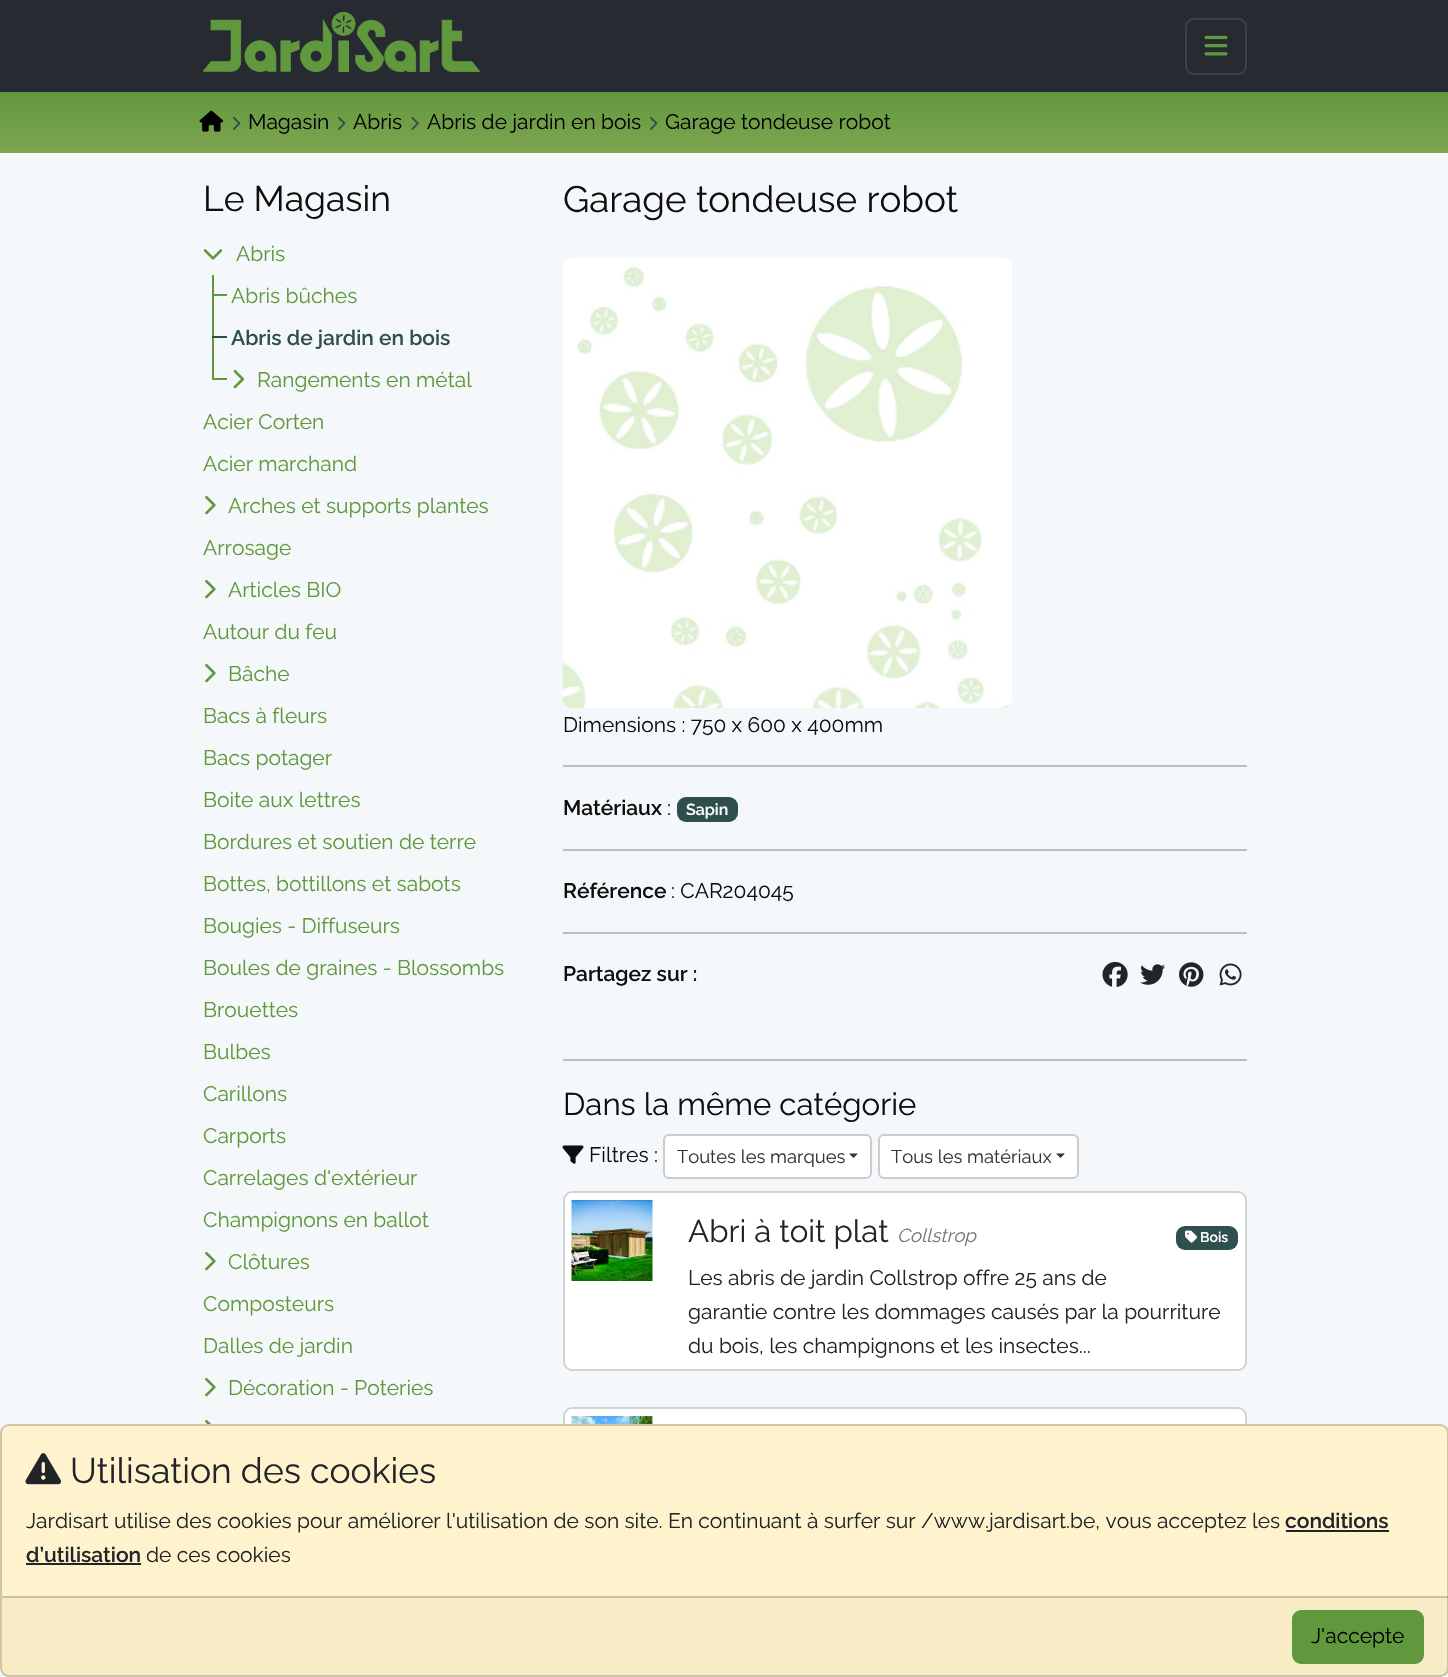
#include "include/core/SkBlurTypes.h"
#include "include/core/SkCanvas.h"
#include "include/core/SkData.h"
#include "include/core/SkFont.h"
#include "include/core/SkFontMgr.h"
#include "include/core/SkImage.h"
#include "include/core/SkMaskFilter.h"
#include "include/core/SkPaint.h"
#include "include/core/SkPathBuilder.h"
#include "include/core/SkTextBlob.h"
#include "include/effects/SkDashPathEffect.h"
#include "include/effects/SkGradientShader.h"
#include "include/utils/SkParsePath.h"

extern sk_sp<SkFontMgr> fontMgr;

void draw(SkCanvas* canvas) {
  SkPaint p;
  p.setAntiAlias(true);
  canvas->clear(SkColorSetRGB(245, 248, 250));
  p.setColor(SkColorSetRGB(39, 43, 49));
  canvas->drawRect(SkRect::MakeLTRB(0, 0, 1448, 92), p);
  canvas->drawImageRect(SkImages::DeferredFromEncodedData(SkData::MakeFromFileName("images/1.png")), SkRect::MakeLTRB(203, 12, 480, 72), SkSamplingOptions());
  p.setStyle(SkPaint::kStroke_Style);
  p.setStrokeWidth(2);
  p.setColor(SkColorSetRGB(61, 64, 70));
  canvas->drawRoundRect(SkRect::MakeLTRB(1186, 19, 1246, 74), 8, 8, p);
  canvas->drawImageRect(SkImages::DeferredFromEncodedData(SkData::MakeFromFileName("images/2.png")), SkRect::MakeLTRB(1204, 35, 1228, 56), SkSamplingOptions());
  p.setStyle(SkPaint::kFill_Style);
  {
    const SkColor colors[] = {SkColorSetRGB(96, 152, 61), SkColorSetRGB(127, 165, 81)};
    const float stops[] = {0, 1};
    const SkPoint ends[] = {{725, 90}, {725, 153}};
    p.setShader(SkGradientShader::MakeLinear(ends, colors, stops, 2, SkTileMode::kClamp));
    p.setAlpha(255);
  }
  canvas->drawRect(SkRect::MakeLTRB(0, 92, 1448, 153), p);
  canvas->drawImageRect(SkImages::DeferredFromEncodedData(SkData::MakeFromFileName("images/3.png")), SkRect::MakeLTRB(199, 110, 224, 132), SkSamplingOptions());
  canvas->drawImageRect(SkImages::DeferredFromEncodedData(SkData::MakeFromFileName("images/4.png")), SkRect::MakeLTRB(233, 116, 241, 130), SkSamplingOptions());
  canvas->drawImageRect(SkImages::DeferredFromEncodedData(SkData::MakeFromFileName("images/4.png")), SkRect::MakeLTRB(338, 116, 346, 130), SkSamplingOptions());
  canvas->drawImageRect(SkImages::DeferredFromEncodedData(SkData::MakeFromFileName("images/5.png")), SkRect::MakeLTRB(411, 116, 419, 130), SkSamplingOptions());
  canvas->drawImageRect(SkImages::DeferredFromEncodedData(SkData::MakeFromFileName("images/4.png")), SkRect::MakeLTRB(650, 116, 658, 130), SkSamplingOptions());
  canvas->drawImageRect(SkImages::DeferredFromEncodedData(SkData::MakeFromFileName("images/6.png")), SkRect::MakeLTRB(203, 249, 223, 260), SkSamplingOptions());
  p.setShader(nullptr);
  p.setColor(SkColorSetRGB(96, 152, 61));
  canvas->drawRect(SkRect::MakeLTRB(212, 275, 214, 378), p);
  canvas->drawRect(SkRect::MakeLTRB(212, 294, 227, 296), p);
  p.setColor(SkColorSetRGB(47, 79, 79));
  canvas->drawRect(SkRect::MakeLTRB(212, 336, 227, 338), p);
  p.setColor(SkColorSetRGB(96, 152, 61));
  canvas->drawRect(SkRect::MakeLTRB(212, 378, 227, 380), p);
  canvas->drawImageRect(SkImages::DeferredFromEncodedData(SkData::MakeFromFileName("images/7.png")), SkRect::MakeLTRB(233, 370, 245, 389), SkSamplingOptions());
  canvas->drawImageRect(SkImages::DeferredFromEncodedData(SkData::MakeFromFileName("images/8.png")), SkRect::MakeLTRB(205, 495, 216, 515), SkSamplingOptions());
  canvas->drawImageRect(SkImages::DeferredFromEncodedData(SkData::MakeFromFileName("images/8.png")), SkRect::MakeLTRB(205, 579, 216, 599), SkSamplingOptions());
  canvas->drawImageRect(SkImages::DeferredFromEncodedData(SkData::MakeFromFileName("images/8.png")), SkRect::MakeLTRB(205, 663, 216, 683), SkSamplingOptions());
  canvas->drawImageRect(SkImages::DeferredFromEncodedData(SkData::MakeFromFileName("images/8.png")), SkRect::MakeLTRB(205, 1251, 216, 1271), SkSamplingOptions());
  canvas->drawImageRect(SkImages::DeferredFromEncodedData(SkData::MakeFromFileName("images/8.png")), SkRect::MakeLTRB(205, 1377, 216, 1397), SkSamplingOptions());
  canvas->drawImageRect(SkImages::DeferredFromEncodedData(SkData::MakeFromFileName("images/9.png")), SkRect::MakeLTRB(205, 1419, 211, 1424), SkSamplingOptions());
  canvas->drawImageRect(SkImages::DeferredFromEncodedData(SkData::MakeFromFileName("images/10.png")), SkRect::MakeLTRB(562, 258, 1012, 708), SkSamplingOptions());
  p.setColor(SkColorSetRGB(188, 190, 191));
  canvas->drawRect(SkRect::MakeLTRB(563, 765, 1247, 767), p);
  p.setColor(SkColorSetRGB(47, 79, 79));
  canvas->drawRoundRect(SkRect::MakeLTRB(677, 797, 738, 822), 9, 9, p);
  p.setColor(SkColorSetRGB(188, 190, 191));
  canvas->drawRect(SkRect::MakeLTRB(563, 849, 1247, 851), p);
  canvas->drawRect(SkRect::MakeLTRB(563, 932, 1247, 934), p);
  canvas->drawImageRect(SkImages::DeferredFromEncodedData(SkData::MakeFromFileName("images/11.png")), SkRect::MakeLTRB(1102, 961, 1128, 987), SkSamplingOptions());
  canvas->drawImageRect(SkImages::DeferredFromEncodedData(SkData::MakeFromFileName("images/12.png")), SkRect::MakeLTRB(1140, 964, 1165, 985), SkSamplingOptions());
  canvas->drawImageRect(SkImages::DeferredFromEncodedData(SkData::MakeFromFileName("images/13.png")), SkRect::MakeLTRB(1179, 962, 1204, 987), SkSamplingOptions());
  canvas->drawImageRect(SkImages::DeferredFromEncodedData(SkData::MakeFromFileName("images/14.png")), SkRect::MakeLTRB(1219, 963, 1242, 986), SkSamplingOptions());
  canvas->drawRect(SkRect::MakeLTRB(563, 1059, 1247, 1061), p);
  canvas->drawImageRect(SkImages::DeferredFromEncodedData(SkData::MakeFromFileName("images/15.png")), SkRect::MakeLTRB(562, 1145, 584, 1164), SkSamplingOptions());
  p.setColor(SK_ColorWHITE);
  canvas->drawRoundRect(SkRect::MakeLTRB(664, 1135, 871, 1178), 5, 5, p);
  p.setStyle(SkPaint::kStroke_Style);
  p.setColor(SkColorSetRGB(204, 204, 204));
  canvas->drawRoundRect(SkRect::MakeLTRB(664, 1135, 871, 1178), 5, 5, p);
  p.setStyle(SkPaint::kFill_Style);
  p.setColor(SkColorSetRGB(51, 51, 51));
  canvas->drawPath(SkPathBuilder().moveTo(849, 1153.5f).lineTo(858, 1153.5f).lineTo(853.5f, 1158).close().detach(), p);
  p.setColor(SK_ColorWHITE);
  canvas->drawRoundRect(SkRect::MakeLTRB(879, 1135, 1078, 1178), 5, 5, p);
  p.setStyle(SkPaint::kStroke_Style);
  p.setColor(SkColorSetRGB(204, 204, 204));
  canvas->drawRoundRect(SkRect::MakeLTRB(879, 1135, 1078, 1178), 5, 5, p);
  p.setStyle(SkPaint::kFill_Style);
  p.setColor(SkColorSetRGB(51, 51, 51));
  canvas->drawPath(SkPathBuilder().moveTo(1056, 1153.5f).lineTo(1065, 1153.5f).lineTo(1060.5f, 1158).close().detach(), p);
  p.setColor(SK_ColorWHITE);
  canvas->drawRoundRect(SkRect::MakeLTRB(564, 1192, 1246, 1370), 8, 8, p);
  p.setStyle(SkPaint::kStroke_Style);
  p.setColor(SkColorSetRGB(211, 211, 211));
  canvas->drawRoundRect(SkRect::MakeLTRB(564, 1192, 1246, 1370), 8, 8, p);
  canvas->drawImageRect(SkImages::DeferredFromEncodedData(SkData::MakeFromFileName("images/16.png")), SkRect::MakeLTRB(571, 1200, 653, 1281), SkSamplingOptions());
  p.setStyle(SkPaint::kFill_Style);
  p.setColor(SkColorSetRGB(47, 79, 79));
  canvas->drawRoundRect(SkRect::MakeLTRB(1176, 1226, 1238, 1250), 9, 9, p);
  canvas->drawImageRect(SkImages::DeferredFromEncodedData(SkData::MakeFromFileName("images/17.png")), SkRect::MakeLTRB(1185, 1230, 1197, 1243), SkSamplingOptions());
  p.setColor(SK_ColorWHITE);
  canvas->drawRoundRect(SkRect::MakeLTRB(564, 1408, 1246, 1586), 8, 8, p);
  p.setStyle(SkPaint::kStroke_Style);
  p.setColor(SkColorSetRGB(211, 211, 211));
  canvas->drawRoundRect(SkRect::MakeLTRB(564, 1408, 1246, 1586), 8, 8, p);
  canvas->drawImageRect(SkImages::DeferredFromEncodedData(SkData::MakeFromFileName("images/18.png")), SkRect::MakeLTRB(571, 1416, 653, 1424), SkSamplingOptions());
  p.setStyle(SkPaint::kFill_Style);
  p.setColor(SkColorSetRGB(255, 243, 205));
  canvas->drawRoundRect(SkRect::MakeLTRB(0, 1424, 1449, 1677), 9, 9, p);
  p.setStyle(SkPaint::kStroke_Style);
  p.setColor(SkColorSetARGB(46, 0, 0, 0));
  canvas->drawRoundRect(SkRect::MakeLTRB(1, 1425, 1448, 1676), 8, 8, p);
  canvas->drawImageRect(SkImages::DeferredFromEncodedData(SkData::MakeFromFileName("images/19.png")), SkRect::MakeLTRB(25, 1453, 62, 1485), SkSamplingOptions());
  p.setStyle(SkPaint::kFill_Style);
  p.setColor(SkColorSetRGB(33, 37, 41));
  canvas->drawRect(SkRect::MakeLTRB(1286, 1530, 1389, 1532), p);
  canvas->drawRect(SkRect::MakeLTRB(26, 1563, 141, 1565), p);
  p.setColor(SkColorSetARGB(8, 33, 37, 41));
  canvas->drawRect(SkRect::MakeLTRB(2, 1596, 1448, 1676), p);
  p.setColor(SkColorSetARGB(46, 0, 0, 0));
  canvas->drawRect(SkRect::MakeLTRB(2, 1596, 1448, 1598), p);
  p.setColor(SkColorSetRGB(96, 152, 61));
  canvas->drawRoundRect(SkRect::MakeLTRB(1293, 1611, 1423, 1663), 8, 8, p);
  p.setStyle(SkPaint::kStroke_Style);
  canvas->drawRoundRect(SkRect::MakeLTRB(1293, 1611, 1423, 1663), 8, 8, p);
  SkFont font1(fontMgr->matchFamilyStyle("Raleway", SkFontStyle::Normal()), 21);
  font1.setSubpixel(true);
  p.setStyle(SkPaint::kFill_Style);
  p.setColor(SK_ColorBLACK);
  canvas->drawString("Magasin", 248, 129, font1, p);
  canvas->drawString("Abris", 353, 129, font1, p);
  canvas->drawString("Abris de jardin en bois", 427, 129, font1, p);
  canvas->drawString("Garage tondeuse robot", 665, 129, font1, p);
  SkFont font2(fontMgr->matchFamilyStyle("Raleway", SkFontStyle::Normal()), 35.5f);
  font2.setSubpixel(true);
  p.setColor(SkColorSetRGB(15, 15, 15));
  canvas->drawString("Le Magasin", 203, 211, font2, p);
  p.setColor(SkColorSetRGB(96, 152, 61));
  canvas->drawString("Abris", 236, 261, font1, p);
  canvas->drawString("Abris bûches", 231, 303, font1, p);
  SkFont font3(fontMgr->matchFamilyStyle("Raleway", SkFontStyle(600, SkFontStyle::kNormal_Width, SkFontStyle::kUpright_Slant)), 21);
  font3.setSubpixel(true);
  p.setColor(SkColorSetRGB(47, 79, 79));
  canvas->drawString("Abris de jardin en bois", 231, 345, font3, p);
  p.setColor(SkColorSetRGB(96, 152, 61));
  canvas->drawString("Rangements en métal", 257, 387, font1, p);
  canvas->drawString("Acier Corten", 203, 429, font1, p);
  canvas->drawString("Acier marchand", 203, 471, font1, p);
  canvas->drawString("Arches et supports plantes", 228, 513, font1, p);
  canvas->drawString("Arrosage", 203, 555, font1, p);
  canvas->drawString("Articles BIO", 228, 597, font1, p);
  canvas->drawString("Autour du feu", 203, 639, font1, p);
  canvas->drawString("Bâche", 228, 681, font1, p);
  canvas->drawString("Bacs à fleurs", 203, 723, font1, p);
  canvas->drawString("Bacs potager", 203, 765, font1, p);
  canvas->drawString("Boite aux lettres", 203, 807, font1, p);
  canvas->drawString("Bordures et soutien de terre", 203, 849, font1, p);
  canvas->drawString("Bottes, bottillons et sabots", 203, 891, font1, p);
  canvas->drawString("Bougies - Diffuseurs", 203, 933, font1, p);
  canvas->drawString("Boules de graines - Blossombs", 203, 975, font1, p);
  canvas->drawString("Brouettes", 203, 1017, font1, p);
  canvas->drawString("Bulbes", 203, 1059, font1, p);
  canvas->drawString("Carillons", 203, 1101, font1, p);
  canvas->drawString("Carports", 203, 1143, font1, p);
  canvas->drawString("Carrelages d'extérieur", 203, 1185, font1, p);
  canvas->drawString("Champignons en ballot", 203, 1227, font1, p);
  canvas->drawString("Clôtures", 228, 1269, font1, p);
  canvas->drawString("Composteurs", 203, 1311, font1, p);
  canvas->drawString("Dalles de jardin", 203, 1353, font1, p);
  canvas->drawString("Décoration - Poteries", 228, 1395, font1, p);
  SkFont font4(fontMgr->matchFamilyStyle("Raleway", SkFontStyle::Normal()), 36.75f);
  font4.setSubpixel(true);
  p.setColor(SkColorSetRGB(15, 15, 15));
  canvas->drawString("Garage tondeuse robot", 563, 212, font4, p);
  canvas->drawString("Dimensions : 750 x 600 x 400mm", 563, 732, font1, p);
  canvas->drawString("Matériaux", 563, 815, font3, p);
  canvas->drawString(":", 667, 815, font1, p);
  SkFont font5(fontMgr->matchFamilyStyle("Raleway", SkFontStyle(600, SkFontStyle::kNormal_Width, SkFontStyle::kUpright_Slant)), 16);
  font5.setSubpixel(true);
  p.setColor(SK_ColorWHITE);
  canvas->drawString("Sapin", 686, 815, font5, p);
  p.setColor(SkColorSetRGB(15, 15, 15));
  canvas->drawString("Référence", 563, 898, font3, p);
  canvas->drawString(": CAR204045", 671, 898, font1, p);
  canvas->drawString("Partagez sur :", 563, 981, font3, p);
  SkFont font6(fontMgr->matchFamilyStyle("Raleway", SkFontStyle::Normal()), 31.25f);
  font6.setSubpixel(true);
  canvas->drawString("Dans la même catégorie", 563, 1115, font6, p);
  canvas->drawString("Filtres :", 589, 1162, font1, p);
  SkFont font7(fontMgr->matchFamilyStyle("Raleway", SkFontStyle::Normal()), 18.4f);
  font7.setSubpixel(true);
  p.setColor(SkColorSetRGB(51, 51, 51));
  canvas->drawString("Toutes les marques", 677, 1163, font7, p);
  canvas->drawString("Tous les matériaux", 891, 1163, font7, p);
  p.setColor(SkColorSetRGB(33, 37, 41));
  canvas->drawString("Abri à toit plat", 688, 1242, font6, p);
  SkFont font8(fontMgr->matchFamilyStyle("Raleway", SkFontStyle::Italic()), 18.75f);
  font8.setSubpixel(true);
  p.setColor(SkColorSetRGB(119, 119, 119));
  canvas->drawString("Collstrop", 897, 1242, font8, p);
  SkFont font9(fontMgr->matchFamilyStyle("Raleway", SkFontStyle(600, SkFontStyle::kNormal_Width, SkFontStyle::kUpright_Slant)), 14);
  font9.setSubpixel(true);
  p.setColor(SK_ColorWHITE);
  canvas->drawString("Bois", 1200, 1242, font9, p);
  p.setColor(SkColorSetRGB(33, 37, 41));
  canvas->drawString("Les abris de jardin Collstrop offre 25 ans de", 688, 1285, font1, p);
  canvas->drawString("garantie contre les dommages causés par la pourriture", 688, 1319, font1, p);
  canvas->drawString("du bois, les champignons et les insectes...", 688, 1353, font1, p);
  canvas->drawString("Utilisation des cookies", 70, 1483, font2, p);
  canvas->drawString("Jardisart utilise des cookies pour améliorer l'utilisation de son site. En continuant à surfer sur /www.jardisart.be, vous acceptez les", 26, 1528, font1, p);
  canvas->drawString("conditions", 1285, 1528, font3, p);
  canvas->drawString("d’utilisation", 26, 1562, font3, p);
  canvas->drawString("de ces cookies", 146, 1562, font1, p);
  p.setColor(SK_ColorBLACK);
  canvas->drawString("J'accepte", 1311, 1643, font1, p);
}
